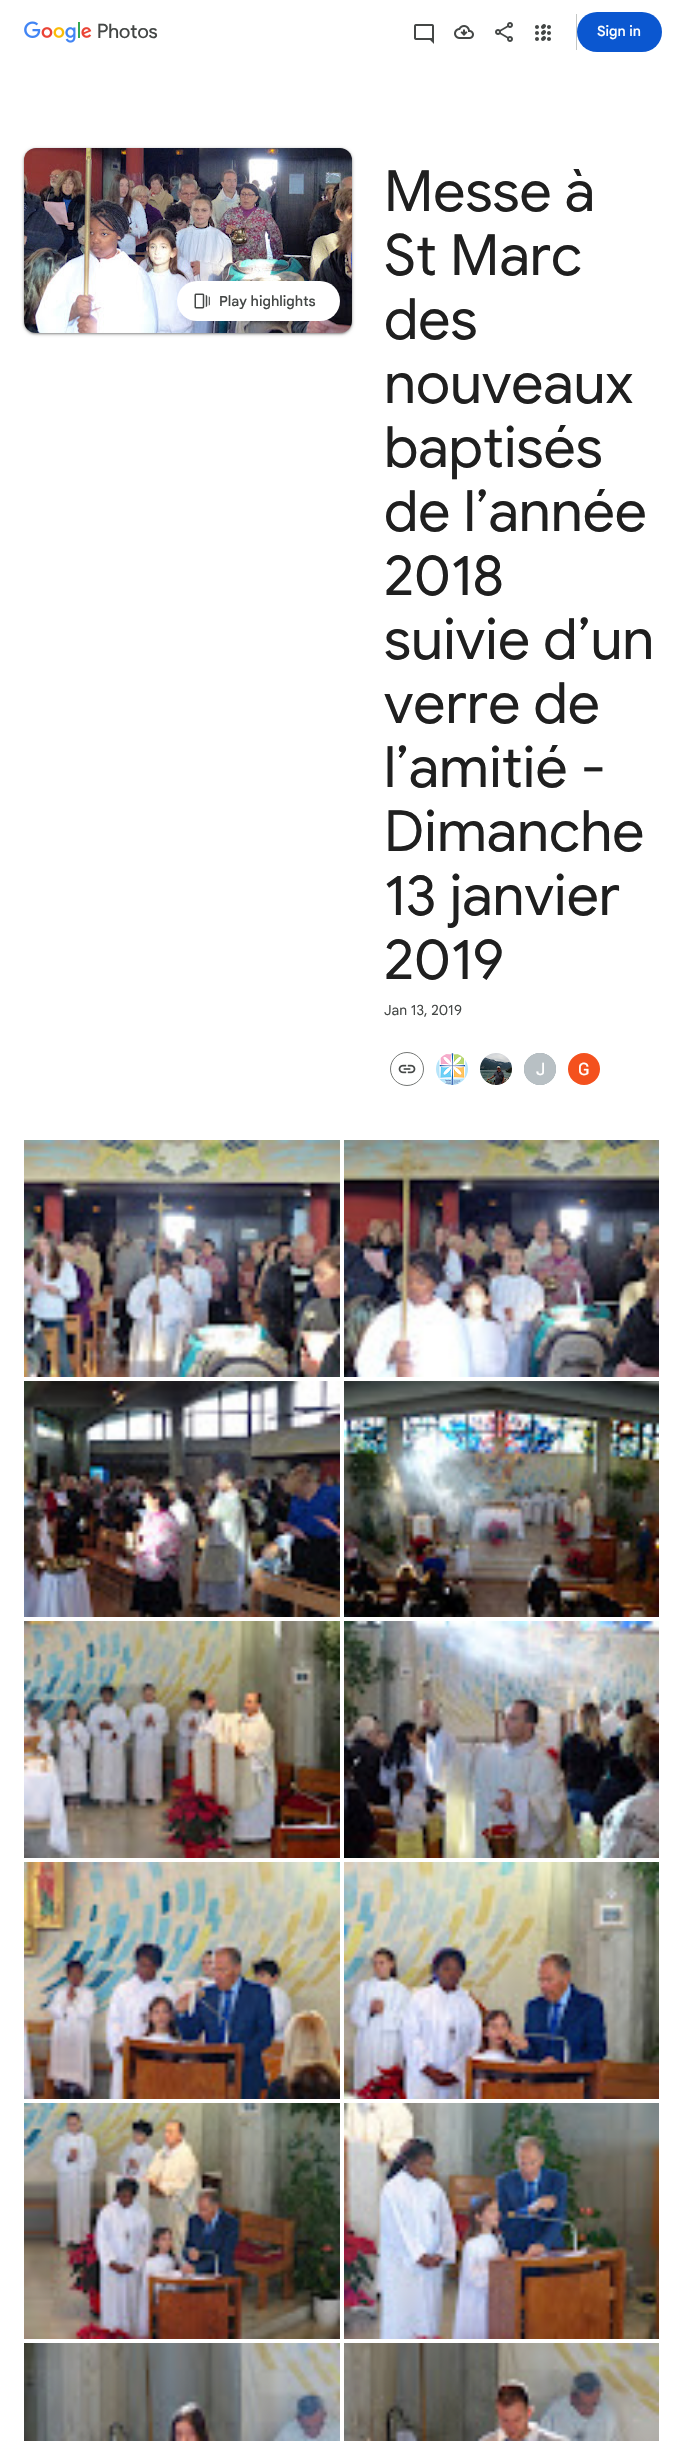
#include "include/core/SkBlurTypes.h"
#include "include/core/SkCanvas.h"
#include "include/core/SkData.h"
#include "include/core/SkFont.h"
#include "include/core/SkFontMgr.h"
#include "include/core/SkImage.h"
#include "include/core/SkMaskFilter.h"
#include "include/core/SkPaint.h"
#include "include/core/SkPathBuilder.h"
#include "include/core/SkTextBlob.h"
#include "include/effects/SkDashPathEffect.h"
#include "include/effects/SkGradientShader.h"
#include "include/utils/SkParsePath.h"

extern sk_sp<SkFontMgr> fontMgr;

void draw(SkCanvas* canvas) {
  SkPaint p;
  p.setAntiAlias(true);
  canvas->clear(SK_ColorWHITE);
  canvas->drawImageRect(SkImages::DeferredFromEncodedData(SkData::MakeFromFileName("images/1.png")), SkRect::MakeLTRB(24, 21, 92, 43), SkSamplingOptions());
  canvas->drawImageRect(SkImages::DeferredFromEncodedData(SkData::MakeFromFileName("images/2.png")), SkRect::MakeLTRB(414, 24, 434, 44), SkSamplingOptions());
  canvas->drawImageRect(SkImages::DeferredFromEncodedData(SkData::MakeFromFileName("images/3.png")), SkRect::MakeLTRB(454, 25, 474, 39), SkSamplingOptions());
  canvas->drawImageRect(SkImages::DeferredFromEncodedData(SkData::MakeFromFileName("images/4.png")), SkRect::MakeLTRB(495, 22, 513, 42), SkSamplingOptions());
  canvas->drawImageRect(SkImages::DeferredFromEncodedData(SkData::MakeFromFileName("images/5.png")), SkRect::MakeLTRB(542, 24, 546, 40), SkSamplingOptions());
  p.setColor(SkColorSetRGB(196, 199, 197));
  canvas->drawRect(SkRect::MakeLTRB(576, 14, 577, 50), p);
  p.setColor(SkColorSetARGB(38, 0, 0, 0));
  p.setMaskFilter(SkMaskFilter::MakeBlur(kNormal_SkBlurStyle, 1.5f));
  canvas->drawRoundRect(SkRect::MakeLTRB(23, 148, 353, 335), 13, 13, p);
  p.setMaskFilter(nullptr);
  p.setColor(SkColorSetARGB(77, 0, 0, 0));
  p.setMaskFilter(SkMaskFilter::MakeBlur(kNormal_SkBlurStyle, 1));
  canvas->drawRoundRect(SkRect::MakeLTRB(24, 149, 352, 334), 12, 12, p);
  p.setMaskFilter(nullptr);
  canvas->drawImageRect(SkImages::DeferredFromEncodedData(SkData::MakeFromFileName("images/6.png")), SkRect::MakeLTRB(24, 148, 352, 333), SkSamplingOptions());
  p.setColor(SK_ColorWHITE);
  canvas->drawRoundRect(SkRect::MakeLTRB(177, 281, 340, 321), 20, 20, p);
  canvas->drawImageRect(SkImages::DeferredFromEncodedData(SkData::MakeFromFileName("images/7.png")), SkRect::MakeLTRB(194, 293, 210, 309), SkSamplingOptions());
  p.setStyle(SkPaint::kStroke_Style);
  p.setStrokeWidth(1);
  p.setColor(SkColorSetRGB(116, 119, 117));
  canvas->drawCircle(407, 1069, 16.5f, p);
  canvas->drawImageRect(SkImages::DeferredFromEncodedData(SkData::MakeFromFileName("images/8.png")), SkRect::MakeLTRB(398, 1064, 416, 1074), SkSamplingOptions());
  canvas->drawImageRect(SkImages::DeferredFromEncodedData(SkData::MakeFromFileName("images/9.png")), SkRect::MakeLTRB(436, 1053, 468, 1085), SkSamplingOptions());
  canvas->drawImageRect(SkImages::DeferredFromEncodedData(SkData::MakeFromFileName("images/10.png")), SkRect::MakeLTRB(480, 1053, 512, 1085), SkSamplingOptions());
  canvas->drawImageRect(SkImages::DeferredFromEncodedData(SkData::MakeFromFileName("images/11.png")), SkRect::MakeLTRB(524, 1053, 556, 1085), SkSamplingOptions());
  p.setStyle(SkPaint::kFill_Style);
  p.setColor(SkColorSetARGB(158, 255, 255, 255));
  canvas->drawCircle(540, 1069, 16, p);
  canvas->drawImageRect(SkImages::DeferredFromEncodedData(SkData::MakeFromFileName("images/12.png")), SkRect::MakeLTRB(568, 1053, 600, 1085), SkSamplingOptions());
  canvas->drawImageRect(SkImages::DeferredFromEncodedData(SkData::MakeFromFileName("images/13.png")), SkRect::MakeLTRB(24, 1140, 340, 1377), SkSamplingOptions());
  canvas->drawImageRect(SkImages::DeferredFromEncodedData(SkData::MakeFromFileName("images/14.png")), SkRect::MakeLTRB(344, 1140, 659, 1377), SkSamplingOptions());
  canvas->drawImageRect(SkImages::DeferredFromEncodedData(SkData::MakeFromFileName("images/15.png")), SkRect::MakeLTRB(24, 1381, 340, 1617), SkSamplingOptions());
  canvas->drawImageRect(SkImages::DeferredFromEncodedData(SkData::MakeFromFileName("images/16.png")), SkRect::MakeLTRB(344, 1381, 659, 1617), SkSamplingOptions());
  canvas->drawImageRect(SkImages::DeferredFromEncodedData(SkData::MakeFromFileName("images/17.png")), SkRect::MakeLTRB(24, 1621, 340, 1858), SkSamplingOptions());
  canvas->drawImageRect(SkImages::DeferredFromEncodedData(SkData::MakeFromFileName("images/18.png")), SkRect::MakeLTRB(344, 1621, 659, 1858), SkSamplingOptions());
  canvas->drawImageRect(SkImages::DeferredFromEncodedData(SkData::MakeFromFileName("images/19.png")), SkRect::MakeLTRB(24, 1862, 340, 2099), SkSamplingOptions());
  canvas->drawImageRect(SkImages::DeferredFromEncodedData(SkData::MakeFromFileName("images/20.png")), SkRect::MakeLTRB(344, 1862, 659, 2099), SkSamplingOptions());
  canvas->drawImageRect(SkImages::DeferredFromEncodedData(SkData::MakeFromFileName("images/21.png")), SkRect::MakeLTRB(24, 2103, 340, 2339), SkSamplingOptions());
  canvas->drawImageRect(SkImages::DeferredFromEncodedData(SkData::MakeFromFileName("images/22.png")), SkRect::MakeLTRB(344, 2103, 659, 2339), SkSamplingOptions());
  canvas->drawImageRect(SkImages::DeferredFromEncodedData(SkData::MakeFromFileName("images/23.png")), SkRect::MakeLTRB(24, 2343, 340, 2441), SkSamplingOptions());
  canvas->drawImageRect(SkImages::DeferredFromEncodedData(SkData::MakeFromFileName("images/24.png")), SkRect::MakeLTRB(344, 2343, 659, 2441), SkSamplingOptions());
  canvas->drawImageRect(SkImages::DeferredFromEncodedData(SkData::MakeFromFileName("images/25.png")), SkRect::MakeLTRB(535, 25, 551, 41), SkSamplingOptions());
  p.setColor(SkColorSetRGB(11, 87, 208));
  canvas->drawRoundRect(SkRect::MakeLTRB(577, 12, 662, 52), 20, 20, p);
  SkFont font1(fontMgr->matchFamilyStyle("Product Sans", SkFontStyle::Normal()), 20);
  font1.setSubpixel(true);
  p.setColor(SkColorSetRGB(68, 71, 70));
  canvas->drawString("Photos", 97, 38, font1, p);
  SkFont font2(fontMgr->matchFamilyStyle("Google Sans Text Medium", SkFontStyle(500, SkFontStyle::kNormal_Width, SkFontStyle::kUpright_Slant)), 14);
  font2.setSubpixel(true);
  canvas->drawString("Play highlights", 219, 306, font2, p);
  SkFont font3(fontMgr->matchFamilyStyle("Google Sans", SkFontStyle::Normal()), 57);
  font3.setSubpixel(true);
  p.setColor(SkColorSetRGB(31, 31, 31));
  canvas->drawString("Messe à", 384, 211, font3, p);
  canvas->drawString("St Marc", 384, 275, font3, p);
  canvas->drawString("des", 384, 339, font3, p);
  canvas->drawString("nouveaux", 384, 403, font3, p);
  canvas->drawString("baptisés", 384, 467, font3, p);
  canvas->drawString("de l’année", 384, 531, font3, p);
  canvas->drawString("2018", 384, 595, font3, p);
  canvas->drawString("suivie d’un", 384, 659, font3, p);
  canvas->drawString("verre de", 384, 723, font3, p);
  canvas->drawString("l’amitié -", 384, 787, font3, p);
  canvas->drawString("Dimanche", 384, 851, font3, p);
  canvas->drawString("13 janvier", 384, 915, font3, p);
  canvas->drawString("2019", 384, 979, font3, p);
  SkFont font4(fontMgr->matchFamilyStyle("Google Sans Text", SkFontStyle::Normal()), 14);
  font4.setSubpixel(true);
  p.setColor(SkColorSetRGB(68, 71, 70));
  canvas->drawString("Jan 13, 2019", 384, 1015, font4, p);
  p.setColor(SK_ColorWHITE);
  canvas->drawString("Sign in", 597, 36, font2, p);
}
